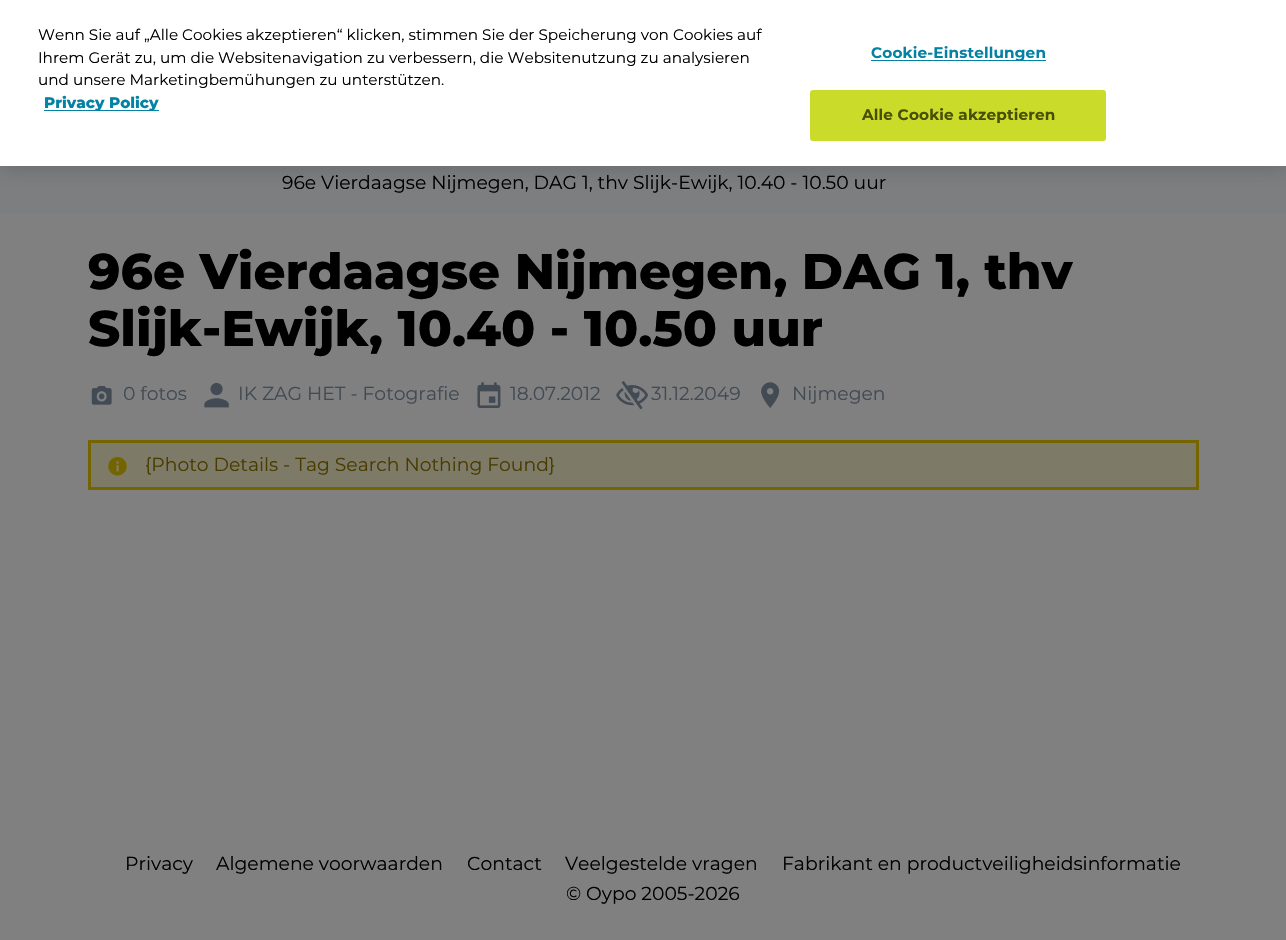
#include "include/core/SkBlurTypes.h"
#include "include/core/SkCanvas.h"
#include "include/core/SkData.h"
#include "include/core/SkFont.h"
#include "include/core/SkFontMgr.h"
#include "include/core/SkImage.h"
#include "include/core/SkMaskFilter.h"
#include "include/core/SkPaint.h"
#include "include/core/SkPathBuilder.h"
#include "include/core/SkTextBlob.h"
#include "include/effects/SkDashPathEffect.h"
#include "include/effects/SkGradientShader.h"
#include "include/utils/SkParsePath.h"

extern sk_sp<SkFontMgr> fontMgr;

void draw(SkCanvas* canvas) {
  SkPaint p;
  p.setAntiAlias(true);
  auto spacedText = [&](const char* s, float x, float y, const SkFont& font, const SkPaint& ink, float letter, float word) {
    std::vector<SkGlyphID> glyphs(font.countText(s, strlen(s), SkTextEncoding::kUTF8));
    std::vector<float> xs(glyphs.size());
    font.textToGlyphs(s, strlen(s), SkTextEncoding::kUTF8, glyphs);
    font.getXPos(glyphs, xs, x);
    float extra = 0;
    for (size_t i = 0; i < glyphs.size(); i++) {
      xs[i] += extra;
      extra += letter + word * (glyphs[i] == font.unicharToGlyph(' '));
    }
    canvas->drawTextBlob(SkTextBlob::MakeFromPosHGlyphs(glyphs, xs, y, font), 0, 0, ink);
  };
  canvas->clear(SkColorSetRGB(128, 128, 128));
  p.setColor(SkColorSetRGB(125, 126, 127));
  canvas->drawRect(SkRect::MakeLTRB(0, 166, 1286, 213), p);
  p.setColor(SkColorSetARGB(51, 0, 0, 0));
  p.setMaskFilter(SkMaskFilter::MakeBlur(kNormal_SkBlurStyle, 11));
  canvas->drawRect(SkRect::MakeLTRB(0, 0, 1286, 166), p);
  p.setMaskFilter(nullptr);
  p.setColor(SK_ColorWHITE);
  canvas->drawRect(SkRect::MakeLTRB(0, 0, 1286, 166), p);
  p.setColor(SkColorSetRGB(3, 130, 164));
  canvas->drawRect(SkRect::MakeLTRB(44, 110, 159, 111), p);
  canvas->drawRect(SkRect::MakeLTRB(871, 60, 1046, 61), p);
  p.setColor(SkColorSetRGB(203, 219, 42));
  canvas->drawRoundRect(SkRect::MakeLTRB(810.5f, 90.5f, 1105.5f, 140.5f), 2, 2, p);
  p.setStyle(SkPaint::kStroke_Style);
  p.setStrokeWidth(1);
  canvas->drawRoundRect(SkRect::MakeLTRB(810.5f, 90.5f, 1105.5f, 140.5f), 2, 2, p);
  canvas->drawImageRect(SkImages::DeferredFromEncodedData(SkData::MakeFromFileName("images/1.png")), SkRect::MakeLTRB(91, 386, 112, 405), SkSamplingOptions());
  canvas->drawImageRect(SkImages::DeferredFromEncodedData(SkData::MakeFromFileName("images/2.png")), SkRect::MakeLTRB(204, 382, 229, 408), SkSamplingOptions());
  canvas->drawImageRect(SkImages::DeferredFromEncodedData(SkData::MakeFromFileName("images/3.png")), SkRect::MakeLTRB(477, 382, 501, 408), SkSamplingOptions());
  canvas->drawImageRect(SkImages::DeferredFromEncodedData(SkData::MakeFromFileName("images/4.png")), SkRect::MakeLTRB(616, 381, 648, 410), SkSamplingOptions());
  canvas->drawImageRect(SkImages::DeferredFromEncodedData(SkData::MakeFromFileName("images/5.png")), SkRect::MakeLTRB(761, 382, 780, 408), SkSamplingOptions());
  p.setStyle(SkPaint::kFill_Style);
  p.setColor(SkColorSetRGB(125, 123, 104));
  canvas->drawRect(SkRect::MakeLTRB(89.5f, 441.5f, 1197.5f, 488.5f), p);
  p.setStyle(SkPaint::kStroke_Style);
  p.setStrokeWidth(3);
  p.setColor(SkColorSetRGB(117, 101, 0));
  canvas->drawRect(SkRect::MakeLTRB(89.5f, 441.5f, 1197.5f, 488.5f), p);
  canvas->drawImageRect(SkImages::DeferredFromEncodedData(SkData::MakeFromFileName("images/6.png")), SkRect::MakeLTRB(108, 457, 127, 476), SkSamplingOptions());
  SkFont font1(fontMgr->matchFamilyStyle("Montserrat", SkFontStyle::Normal()), 15.25f);
  font1.setSubpixel(true);
  p.setStyle(SkPaint::kFill_Style);
  p.setColor(SK_ColorBLACK);
  canvas->drawString("Wenn Sie auf „Alle Cookies akzeptieren“ klicken, stimmen Sie der Speicherung von Cookies auf", 38, 40, font1, p);
  canvas->drawString("Ihrem Gerät zu, um die Websitenavigation zu verbessern, die Websitenutzung zu analysieren", 38, 63, font1, p);
  canvas->drawString("und unsere Marketingbemühungen zu unterstützen.", 38, 85, font1, p);
  SkFont font2(fontMgr->matchFamilyStyle("Montserrat", SkFontStyle(800, SkFontStyle::kNormal_Width, SkFontStyle::kUpright_Slant)), 15.25f);
  font2.setSubpixel(true);
  p.setColor(SkColorSetRGB(3, 130, 164));
  canvas->drawString("Privacy Policy", 44, 108, font2, p);
  SkFont font3(fontMgr->matchFamilyStyle("Montserrat", SkFontStyle::Bold()), 15.25f);
  font3.setSubpixel(true);
  spacedText("Cookie-Einstellungen", 871, 58, font3, p, 0.15f, 0);
  p.setColor(SkColorSetRGB(71, 79, 0));
  spacedText("Alle Cookie akzeptieren", 862, 120, font3, p, 0.15f, 0);
  SkFont font4(fontMgr->matchFamilyStyle("Montserrat", SkFontStyle::Normal()), 18.75f);
  font4.setSubpixel(true);
  p.setColor(SK_ColorBLACK);
  canvas->drawString("96e Vierdaagse Nijmegen, DAG 1, thv Slijk-Ewijk, 10.40 - 10.50 uur", 282, 189, font4, p);
  SkFont font5(fontMgr->matchFamilyStyle("Montserrat", SkFontStyle(800, SkFontStyle::kNormal_Width, SkFontStyle::kUpright_Slant)), 50);
  font5.setSubpixel(true);
  canvas->drawString("96e Vierdaagse Nijmegen, DAG 1, thv", 88, 289, font5, p);
  canvas->drawString("Slijk-Ewijk, 10.40 - 10.50 uur", 88, 346, font5, p);
  p.setColor(SkColorSetRGB(66, 74, 84));
  canvas->drawString("0 fotos", 123, 400, font4, p);
  canvas->drawString("IK ZAG HET - Fotografie", 238, 400, font4, p);
  canvas->drawString("18.07.2012", 510, 400, font4, p);
  canvas->drawString("31.12.2049", 651, 400, font4, p);
  canvas->drawString("Nijmegen", 792, 400, font4, p);
  p.setColor(SkColorSetRGB(73, 59, 0));
  canvas->drawString("{Photo Details - Tag Search Nothing Found}", 145, 471, font4, p);
  p.setColor(SK_ColorBLACK);
  canvas->drawString("Privacy", 125, 870, font4, p);
  canvas->drawString("Algemene voorwaarden", 216, 870, font4, p);
  canvas->drawString("Contact", 467, 870, font4, p);
  canvas->drawString("Veelgestelde vragen", 565, 870, font4, p);
  canvas->drawString("Fabrikant en productveiligheidsinformatie", 782, 870, font4, p);
  canvas->drawString("© Oypo 2005-2026", 566, 900, font4, p);
}
